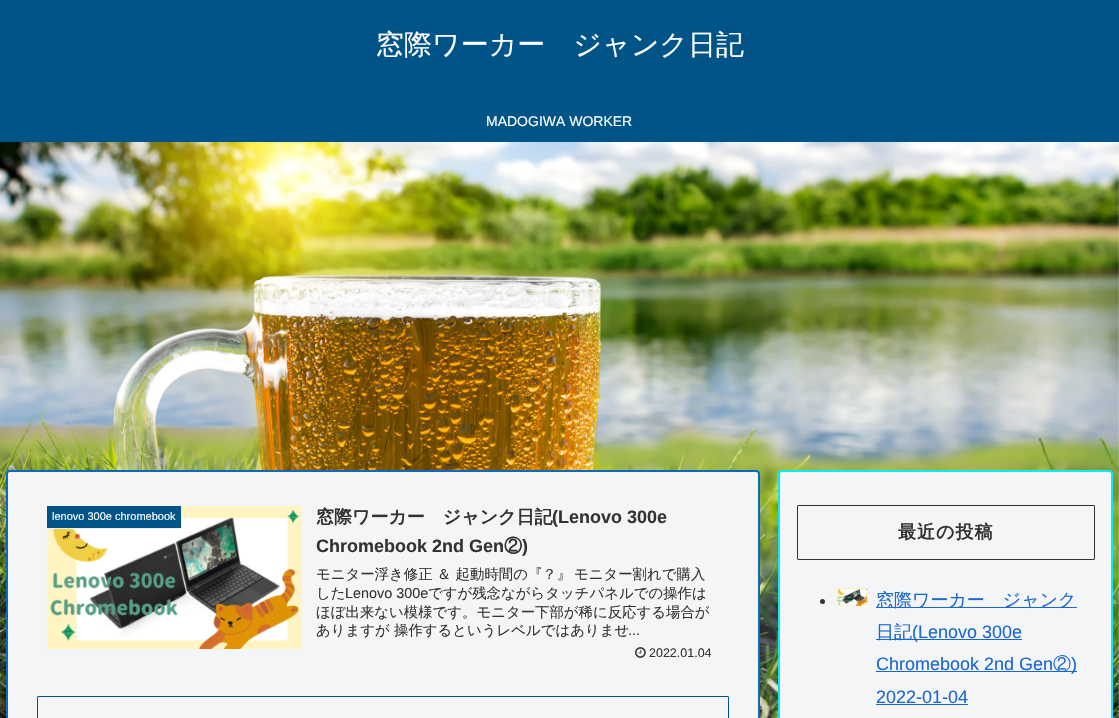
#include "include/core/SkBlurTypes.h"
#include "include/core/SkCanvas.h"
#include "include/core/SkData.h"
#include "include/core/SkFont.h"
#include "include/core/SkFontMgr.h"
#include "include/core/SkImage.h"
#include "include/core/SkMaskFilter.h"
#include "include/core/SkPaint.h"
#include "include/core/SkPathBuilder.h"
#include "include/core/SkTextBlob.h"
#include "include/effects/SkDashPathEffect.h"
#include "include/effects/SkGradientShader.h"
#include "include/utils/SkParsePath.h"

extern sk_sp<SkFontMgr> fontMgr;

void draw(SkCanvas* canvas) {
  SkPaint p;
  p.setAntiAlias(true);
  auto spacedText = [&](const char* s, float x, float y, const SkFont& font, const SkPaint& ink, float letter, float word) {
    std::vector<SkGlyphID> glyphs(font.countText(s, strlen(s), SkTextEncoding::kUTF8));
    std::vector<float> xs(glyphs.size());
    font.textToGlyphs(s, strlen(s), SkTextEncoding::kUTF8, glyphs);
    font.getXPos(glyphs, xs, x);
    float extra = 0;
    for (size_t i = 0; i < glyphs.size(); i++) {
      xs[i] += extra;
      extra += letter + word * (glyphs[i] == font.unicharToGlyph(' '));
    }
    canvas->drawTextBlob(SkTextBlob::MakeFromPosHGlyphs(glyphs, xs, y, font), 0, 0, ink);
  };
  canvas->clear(SK_ColorWHITE);
  canvas->drawImageRect(SkImages::DeferredFromEncodedData(SkData::MakeFromFileName("images/1.png")), SkRect::MakeLTRB(0, 142, 1119, 718), SkSamplingOptions());
  p.setColor(SkColorSetRGB(0, 84, 136));
  canvas->drawRect(SkRect::MakeLTRB(0, 0, 1119, 142), p);
  p.setColor(SkColorSetRGB(244, 245, 247));
  canvas->drawRoundRect(SkRect::MakeLTRB(7, 471, 759, 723), 3, 3, p);
  p.setStyle(SkPaint::kStroke_Style);
  p.setStrokeWidth(2);
  p.setColor(SkColorSetRGB(9, 106, 191));
  canvas->drawRoundRect(SkRect::MakeLTRB(7, 471, 759, 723), 3, 3, p);
  canvas->drawImageRect(SkImages::DeferredFromEncodedData(SkData::MakeFromFileName("images/2.png")), SkRect::MakeLTRB(47, 506, 302, 649), SkSamplingOptions());
  p.setStyle(SkPaint::kFill_Style);
  p.setColor(SkColorSetRGB(0, 84, 136));
  canvas->drawRect(SkRect::MakeLTRB(47, 506, 181, 528), p);
  p.setColor(SkColorSetRGB(238, 238, 238));
  canvas->drawRect(SkRect::MakeLTRB(181, 506, 182, 529), p);
  canvas->drawRect(SkRect::MakeLTRB(47, 528, 182, 529), p);
  canvas->drawImageRect(SkImages::DeferredFromEncodedData(SkData::MakeFromFileName("images/3.png")), SkRect::MakeLTRB(635, 647, 646, 658), SkSamplingOptions());
  p.setStyle(SkPaint::kStroke_Style);
  p.setStrokeWidth(1);
  p.setColor(SkColorSetRGB(0, 84, 136));
  canvas->drawRoundRect(SkRect::MakeLTRB(37.5f, 696.5f, 728.5f, 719.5f), 0.5f, 0.5f, p);
  p.setStyle(SkPaint::kFill_Style);
  p.setColor(SkColorSetRGB(244, 245, 247));
  canvas->drawRoundRect(SkRect::MakeLTRB(779, 471, 1112, 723), 3, 3, p);
  p.setStyle(SkPaint::kStroke_Style);
  p.setStrokeWidth(2);
  p.setColor(SkColorSetRGB(4, 236, 244));
  canvas->drawRoundRect(SkRect::MakeLTRB(779, 471, 1112, 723), 3, 3, p);
  p.setStrokeWidth(1);
  p.setColor(SkColorSetRGB(51, 51, 51));
  canvas->drawRoundRect(SkRect::MakeLTRB(797.5f, 505.5f, 1094.5f, 559.5f), 0.5f, 0.5f, p);
  p.setStyle(SkPaint::kFill_Style);
  canvas->drawCircle(822.5f, 601.5f, 2.5f, p);
  canvas->drawImageRect(SkImages::DeferredFromEncodedData(SkData::MakeFromFileName("images/4.png")), SkRect::MakeLTRB(837, 588, 868, 606), SkSamplingOptions());
  p.setColor(SkColorSetRGB(25, 103, 210));
  canvas->drawRect(SkRect::MakeLTRB(876, 607, 1077, 608), p);
  canvas->drawRect(SkRect::MakeLTRB(876, 639, 1022, 640), p);
  canvas->drawRect(SkRect::MakeLTRB(876, 671, 1077, 672), p);
  canvas->drawRect(SkRect::MakeLTRB(876, 704, 968, 705), p);
  SkFont font1(fontMgr->matchFamilyStyle("WenQuanYi Zen Hei", SkFontStyle(500, SkFontStyle::kNormal_Width, SkFontStyle::kUpright_Slant)), 28);
  font1.setSubpixel(true);
  p.setColor(SK_ColorWHITE);
  canvas->drawString("窓際ワーカー　ジャンク日記", 376, 54, font1, p);
  SkFont font2(fontMgr->matchFamilyStyle("Liberation Sans", SkFontStyle::Normal()), 14);
  font2.setSubpixel(true);
  canvas->drawString("MADOGIWA WORKER", 486, 126, font2, p);
  SkFont font3(fontMgr->matchFamilyStyle("Liberation Sans", SkFontStyle::Normal()), 11);
  font3.setSubpixel(true);
  canvas->drawString("lenovo 300e chromebook", 52, 520, font3, p);
  SkFont font4(fontMgr->matchFamilyStyle("WenQuanYi Zen Hei", SkFontStyle::Bold()), 18);
  font4.setSubpixel(true);
  p.setColor(SkColorSetRGB(51, 51, 51));
  canvas->drawString("窓際ワーカー　ジャンク日記", 316, 523, font4, p);
  SkFont font5(fontMgr->matchFamilyStyle("Liberation Sans", SkFontStyle::Bold()), 18);
  font5.setSubpixel(true);
  canvas->drawString("(Lenovo 300e", 552, 523, font5, p);
  canvas->drawString("Chromebook 2nd Gen", 316, 552, font5, p);
  canvas->drawString("②", 504, 552, font4, p);
  canvas->drawString(")", 522, 552, font5, p);
  SkFont font6(fontMgr->matchFamilyStyle("WenQuanYi Zen Hei", SkFontStyle(500, SkFontStyle::kNormal_Width, SkFontStyle::kUpright_Slant)), 14.4f);
  font6.setSubpixel(true);
  canvas->drawString("モニター浮き修正 ＆ 起動時間の『？』", 316, 579, font6, p);
  canvas->drawString("モニター割れで購入", 574, 579, font6, p);
  canvas->drawString("した", 316, 598, font6, p);
  SkFont font7(fontMgr->matchFamilyStyle("Liberation Sans", SkFontStyle::Normal()), 14.4f);
  font7.setSubpixel(true);
  canvas->drawString("Lenovo 300e", 345, 598, font7, p);
  canvas->drawString("ですが残念ながらタッチパネルでの操作は", 428, 598, font6, p);
  canvas->drawString("ほぼ出来ない模様です。モニター下部が稀に反応する場合が", 316, 617, font6, p);
  canvas->drawString("ありますが 操作するというレベルではありませ", 316, 635, font6, p);
  canvas->drawString("...", 628, 635, font7, p);
  SkFont font8(fontMgr->matchFamilyStyle("Liberation Sans", SkFontStyle::Normal()), 12.5f);
  font8.setSubpixel(true);
  canvas->drawString("2022.01.04", 649, 657, font8, p);
  spacedText("最近の投稿", 898, 538, font4, p, 1, 0);
  SkFont font9(fontMgr->matchFamilyStyle("WenQuanYi Zen Hei", SkFontStyle(500, SkFontStyle::kNormal_Width, SkFontStyle::kUpright_Slant)), 18);
  font9.setSubpixel(true);
  p.setColor(SkColorSetRGB(25, 103, 210));
  canvas->drawString("窓際ワーカー　ジャンク", 876, 606, font9, p);
  canvas->drawString("日記", 876, 638, font9, p);
  SkFont font10(fontMgr->matchFamilyStyle("Liberation Sans", SkFontStyle::Normal()), 18);
  font10.setSubpixel(true);
  canvas->drawString("(Lenovo 300e", 912, 638, font10, p);
  canvas->drawString("Chromebook 2nd Gen", 876, 670, font10, p);
  canvas->drawString("②", 1053, 670, font9, p);
  canvas->drawString(")", 1071, 670, font10, p);
  canvas->drawString("2022-01-04", 876, 703, font10, p);
}
